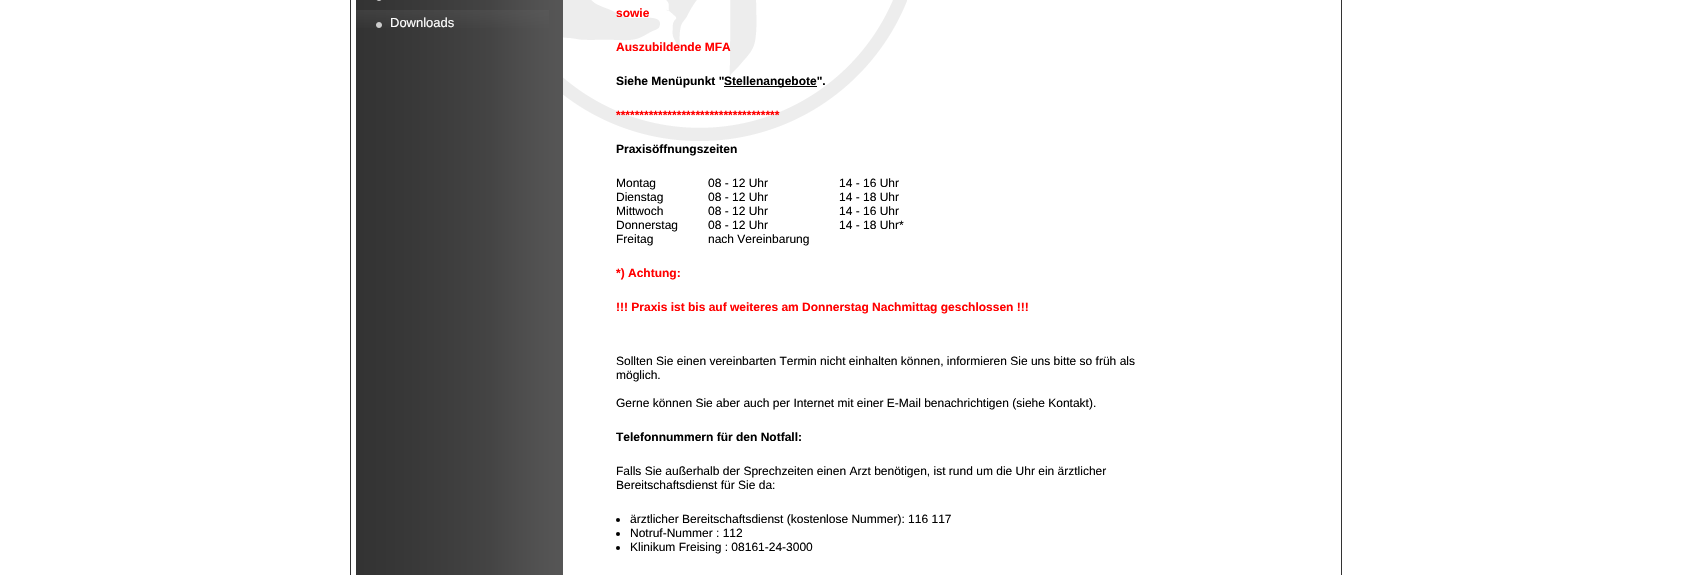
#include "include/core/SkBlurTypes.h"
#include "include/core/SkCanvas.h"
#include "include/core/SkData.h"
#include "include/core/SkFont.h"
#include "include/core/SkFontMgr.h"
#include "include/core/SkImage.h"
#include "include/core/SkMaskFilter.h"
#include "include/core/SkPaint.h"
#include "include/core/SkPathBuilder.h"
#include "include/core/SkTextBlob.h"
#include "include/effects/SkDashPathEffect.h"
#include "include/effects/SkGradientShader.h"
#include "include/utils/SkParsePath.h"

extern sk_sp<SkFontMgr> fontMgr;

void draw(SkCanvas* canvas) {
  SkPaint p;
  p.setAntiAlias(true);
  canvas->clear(SK_ColorWHITE);
  canvas->drawImageRect(SkImages::DeferredFromEncodedData(SkData::MakeFromFileName("images/1.png")), SkRect::MakeLTRB(563, 0, 907, 141), SkSamplingOptions());
  canvas->drawImageRect(SkImages::DeferredFromEncodedData(SkData::MakeFromFileName("images/2.png")), SkRect::MakeLTRB(356, 0, 563, 575), SkSamplingOptions());
  p.setColor(SkColorSetRGB(51, 51, 51));
  canvas->drawRect(SkRect::MakeLTRB(1341, 0, 1342, 575), p);
  canvas->drawRect(SkRect::MakeLTRB(350, 0, 351, 575), p);
  canvas->drawImageRect(SkImages::DeferredFromEncodedData(SkData::MakeFromFileName("images/3.png")), SkRect::MakeLTRB(376, 0, 382, 1), SkSamplingOptions());
  canvas->drawImageRect(SkImages::DeferredFromEncodedData(SkData::MakeFromFileName("images/4.png")), SkRect::MakeLTRB(356, 10, 549, 28), SkSamplingOptions());
  p.setColor(SK_ColorBLACK);
  canvas->drawRect(SkRect::MakeLTRB(724, 86, 817, 87), p);
  canvas->drawCircle(618, 520, 2, p);
  canvas->drawCircle(618, 534, 2, p);
  canvas->drawCircle(618, 548, 2, p);
  SkFont font1(fontMgr->matchFamilyStyle("Liberation Sans", SkFontStyle::Normal()), 13);
  font1.setSubpixel(true);
  p.setColor(SK_ColorWHITE);
  canvas->drawString("Downloads", 390, 27, font1, p);
  SkFont font2(fontMgr->matchFamilyStyle("Liberation Sans", SkFontStyle::Bold()), 12);
  font2.setSubpixel(true);
  p.setColor(SkColorSetRGB(255, 0, 0));
  canvas->drawString("sowie", 616, 17, font2, p);
  canvas->drawString("Auszubildende MFA", 616, 51, font2, p);
  p.setColor(SK_ColorBLACK);
  canvas->drawString("Siehe Menüpunkt \"", 616, 85, font2, p);
  canvas->drawString("Stellenangebote\".", 724, 85, font2, p);
  p.setColor(SkColorSetRGB(255, 0, 0));
  canvas->drawString("***********************************", 616, 119, font2, p);
  p.setColor(SK_ColorBLACK);
  canvas->drawString("Praxisöffnungszeiten", 616, 153, font2, p);
  SkFont font3(fontMgr->matchFamilyStyle("Liberation Sans", SkFontStyle::Normal()), 12);
  font3.setSubpixel(true);
  canvas->drawString("Montag", 616, 187, font3, p);
  canvas->drawString("08 - 12 Uhr", 708, 187, font3, p);
  canvas->drawString("14 - 16 Uhr", 839, 187, font3, p);
  canvas->drawString("Dienstag", 616, 201, font3, p);
  canvas->drawString("08 - 12 Uhr", 708, 201, font3, p);
  canvas->drawString("14 - 18 Uhr", 839, 201, font3, p);
  canvas->drawString("Mittwoch", 616, 215, font3, p);
  canvas->drawString("08 - 12 Uhr", 708, 215, font3, p);
  canvas->drawString("14 - 16 Uhr", 839, 215, font3, p);
  canvas->drawString("Donnerstag", 616, 229, font3, p);
  canvas->drawString("08 - 12 Uhr", 708, 229, font3, p);
  canvas->drawString("14 - 18 Uhr*", 839, 229, font3, p);
  canvas->drawString("Freitag", 616, 243, font3, p);
  canvas->drawString("nach Vereinbarung", 708, 243, font3, p);
  p.setColor(SkColorSetRGB(255, 0, 0));
  canvas->drawString("*) Achtung:", 616, 277, font2, p);
  canvas->drawString("!!! Praxis ist bis auf weiteres am Donnerstag Nachmittag geschlossen !!!", 616, 311, font2, p);
  p.setColor(SK_ColorBLACK);
  canvas->drawString("Sollten Sie einen vereinbarten Termin nicht einhalten können, informieren Sie uns bitte so früh als", 616, 365, font3, p);
  canvas->drawString("möglich.", 616, 379, font3, p);
  canvas->drawString("Gerne können Sie aber auch per Internet mit einer E-Mail benachrichtigen (siehe Kontakt).", 616, 407, font3, p);
  canvas->drawString("Telefonnummern für den Notfall:", 616, 441, font2, p);
  canvas->drawString("Falls Sie außerhalb der Sprechzeiten einen Arzt benötigen, ist rund um die Uhr ein ärztlicher", 616, 475, font3, p);
  canvas->drawString("Bereitschaftsdienst für Sie da:", 616, 489, font3, p);
  canvas->drawString("ärztlicher Bereitschaftsdienst (kostenlose Nummer): 116 117", 630, 523, font3, p);
  canvas->drawString("Notruf-Nummer : 112", 630, 537, font3, p);
  canvas->drawString("Klinikum Freising : 08161-24-3000", 630, 551, font3, p);
}
